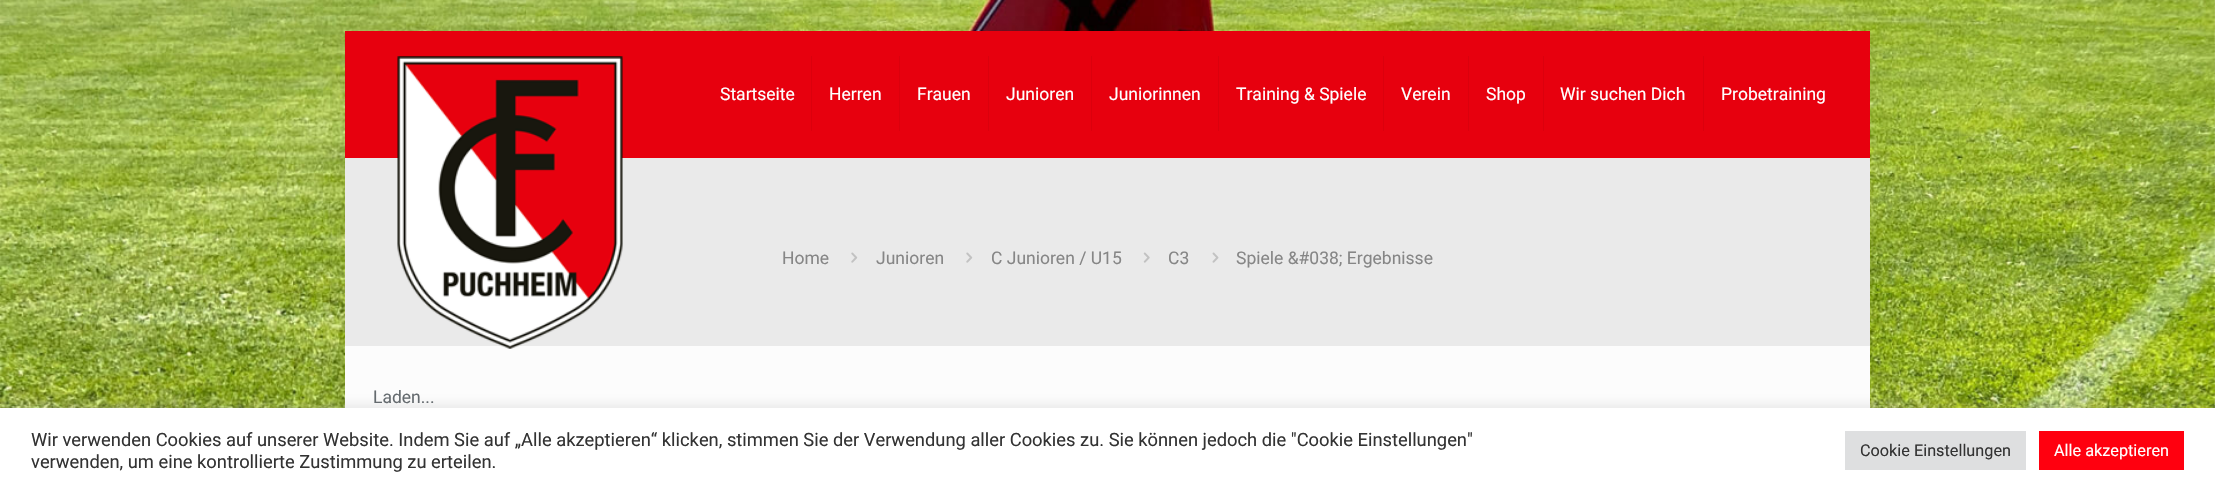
#include "include/core/SkBlurTypes.h"
#include "include/core/SkCanvas.h"
#include "include/core/SkData.h"
#include "include/core/SkFont.h"
#include "include/core/SkFontMgr.h"
#include "include/core/SkImage.h"
#include "include/core/SkMaskFilter.h"
#include "include/core/SkPaint.h"
#include "include/core/SkPathBuilder.h"
#include "include/core/SkTextBlob.h"
#include "include/effects/SkDashPathEffect.h"
#include "include/effects/SkGradientShader.h"
#include "include/utils/SkParsePath.h"

extern sk_sp<SkFontMgr> fontMgr;

void draw(SkCanvas* canvas) {
  SkPaint p;
  p.setAntiAlias(true);
  canvas->clear(SK_ColorWHITE);
  canvas->drawImageRect(SkImages::DeferredFromEncodedData(SkData::MakeFromFileName("images/1.png")), SkRect::MakeLTRB(0, 0, 2215, 408), SkSamplingOptions());
  p.setColor(SkColorSetARGB(15, 0, 0, 0));
  p.setMaskFilter(SkMaskFilter::MakeBlur(kNormal_SkBlurStyle, 9.5f));
  canvas->drawRect(SkRect::MakeLTRB(345, 31, 1870, 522), p);
  p.setMaskFilter(nullptr);
  p.setColor(SkColorSetRGB(252, 252, 252));
  canvas->drawRect(SkRect::MakeLTRB(345, 346, 1870, 408), p);
  p.setColor(SkColorSetRGB(231, 0, 14));
  canvas->drawRect(SkRect::MakeLTRB(345, 31, 1870, 158), p);
  p.setColor(SkColorSetRGB(234, 234, 234));
  canvas->drawRect(SkRect::MakeLTRB(345, 158, 1870, 346), p);
  canvas->drawImageRect(SkImages::DeferredFromEncodedData(SkData::MakeFromFileName("images/2.png")), SkRect::MakeLTRB(397, 56, 623, 349), SkSamplingOptions());
  p.setColor(SkColorSetRGB(219, 0, 13));
  canvas->drawRect(SkRect::MakeLTRB(811, 56, 812, 131), p);
  canvas->drawRect(SkRect::MakeLTRB(899, 56, 900, 131), p);
  canvas->drawRect(SkRect::MakeLTRB(988, 56, 989, 131), p);
  canvas->drawRect(SkRect::MakeLTRB(1091, 56, 1092, 131), p);
  canvas->drawRect(SkRect::MakeLTRB(1218, 56, 1219, 131), p);
  canvas->drawRect(SkRect::MakeLTRB(1383, 56, 1384, 131), p);
  canvas->drawRect(SkRect::MakeLTRB(1468, 56, 1469, 131), p);
  canvas->drawRect(SkRect::MakeLTRB(1543, 56, 1544, 131), p);
  canvas->drawRect(SkRect::MakeLTRB(1703, 56, 1704, 131), p);
  canvas->drawImageRect(SkImages::DeferredFromEncodedData(SkData::MakeFromFileName("images/3.png")), SkRect::MakeLTRB(851, 252, 858, 263), SkSamplingOptions());
  canvas->drawImageRect(SkImages::DeferredFromEncodedData(SkData::MakeFromFileName("images/3.png")), SkRect::MakeLTRB(966, 252, 973, 263), SkSamplingOptions());
  canvas->drawImageRect(SkImages::DeferredFromEncodedData(SkData::MakeFromFileName("images/4.png")), SkRect::MakeLTRB(1143, 252, 1150, 263), SkSamplingOptions());
  canvas->drawImageRect(SkImages::DeferredFromEncodedData(SkData::MakeFromFileName("images/5.png")), SkRect::MakeLTRB(1212, 252, 1219, 263), SkSamplingOptions());
  p.setColor(SkColorSetARGB(77, 172, 171, 171));
  p.setMaskFilter(SkMaskFilter::MakeBlur(kNormal_SkBlurStyle, 6));
  canvas->drawRect(SkRect::MakeLTRB(0, 406, 2215, 493), p);
  p.setMaskFilter(nullptr);
  p.setColor(SK_ColorWHITE);
  canvas->drawRect(SkRect::MakeLTRB(0, 408, 2215, 493), p);
  p.setColor(SkColorSetRGB(222, 223, 224));
  canvas->drawRect(SkRect::MakeLTRB(1845, 431, 2026, 470), p);
  p.setColor(SkColorSetRGB(255, 0, 15));
  canvas->drawRect(SkRect::MakeLTRB(2039, 431, 2184, 470), p);
  SkFont font1(fontMgr->matchFamilyStyle("Roboto", SkFontStyle::Normal()), 17.5f);
  font1.setSubpixel(true);
  p.setColor(SK_ColorWHITE);
  canvas->drawString("Startseite", 720, 100, font1, p);
  canvas->drawString("Herren", 829, 100, font1, p);
  canvas->drawString("Frauen", 917, 100, font1, p);
  canvas->drawString("Junioren", 1006, 100, font1, p);
  canvas->drawString("Juniorinnen", 1109, 100, font1, p);
  canvas->drawString("Training & Spiele", 1236, 100, font1, p);
  canvas->drawString("Verein", 1401, 100, font1, p);
  canvas->drawString("Shop", 1486, 100, font1, p);
  canvas->drawString("Wir suchen Dich", 1560, 100, font1, p);
  canvas->drawString("Probetraining", 1721, 100, font1, p);
  p.setColor(SkColorSetRGB(134, 134, 134));
  canvas->drawString("Home", 782, 264, font1, p);
  canvas->drawString("Junioren", 876, 264, font1, p);
  canvas->drawString("C Junioren / U15", 991, 264, font1, p);
  canvas->drawString("C3", 1168, 264, font1, p);
  canvas->drawString("Spiele &#038; Ergebnisse", 1236, 264, font1, p);
  p.setColor(SkColorSetRGB(101, 107, 111));
  canvas->drawString("Laden...", 373, 403, font1, p);
  SkFont font2(fontMgr->matchFamilyStyle("Roboto", SkFontStyle::Normal()), 18.33f);
  font2.setSubpixel(true);
  p.setColor(SkColorSetRGB(51, 51, 51));
  canvas->drawString("Wir verwenden Cookies auf unserer Website. Indem Sie auf „Alle akzeptieren“ klicken, stimmen Sie der Verwendung aller Cookies zu. Sie können jedoch die \"Cookie Einstellungen\"", 31, 446, font2, p);
  canvas->drawString("verwenden, um eine kontrollierte Zustimmung zu erteilen.", 31, 468, font2, p);
  SkFont font3(fontMgr->matchFamilyStyle("Roboto", SkFontStyle::Normal()), 16.25f);
  font3.setSubpixel(true);
  canvas->drawString("Cookie Einstellungen", 1860, 456, font3, p);
  p.setColor(SK_ColorWHITE);
  canvas->drawString("Alle akzeptieren", 2054, 456, font3, p);
}
